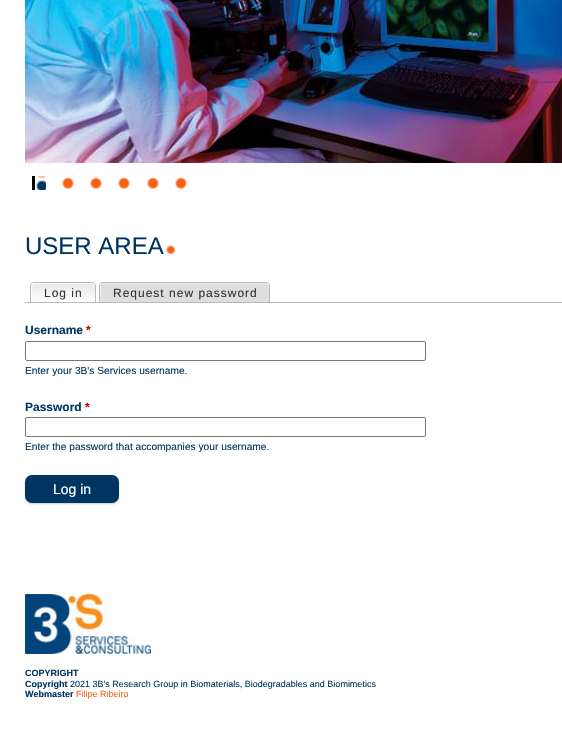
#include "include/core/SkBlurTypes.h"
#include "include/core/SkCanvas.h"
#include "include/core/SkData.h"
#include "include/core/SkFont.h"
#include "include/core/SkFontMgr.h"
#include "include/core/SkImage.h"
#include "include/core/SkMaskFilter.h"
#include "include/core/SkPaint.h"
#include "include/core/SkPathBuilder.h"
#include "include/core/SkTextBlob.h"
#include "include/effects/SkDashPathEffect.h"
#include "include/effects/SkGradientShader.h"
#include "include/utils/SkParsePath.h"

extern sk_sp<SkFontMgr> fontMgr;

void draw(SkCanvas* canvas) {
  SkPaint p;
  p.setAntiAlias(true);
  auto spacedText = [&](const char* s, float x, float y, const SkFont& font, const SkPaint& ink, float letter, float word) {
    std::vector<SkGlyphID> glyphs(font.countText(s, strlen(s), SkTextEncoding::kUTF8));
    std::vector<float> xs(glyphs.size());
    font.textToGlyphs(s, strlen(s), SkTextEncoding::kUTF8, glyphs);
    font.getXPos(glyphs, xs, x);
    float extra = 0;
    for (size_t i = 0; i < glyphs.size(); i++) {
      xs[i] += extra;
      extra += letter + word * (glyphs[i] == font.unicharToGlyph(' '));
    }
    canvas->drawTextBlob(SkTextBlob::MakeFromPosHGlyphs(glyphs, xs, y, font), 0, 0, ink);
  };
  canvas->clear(SK_ColorWHITE);
  canvas->save();
  canvas->clipRect(SkRect::MakeLTRB(32, 176, 46, 190));
  p.setStyle(SkPaint::kStroke_Style);
  p.setStrokeWidth(3);
  p.setColor(SK_ColorBLACK);
  canvas->drawRect(SkRect::MakeLTRB(33.5f, 151.5f, 49.5f, 193.5f), p);
  canvas->restore();
  canvas->drawImageRect(SkImages::DeferredFromEncodedData(SkData::MakeFromFileName("images/1.png")), SkRect::MakeLTRB(25, 0, 562, 163), SkSamplingOptions());
  canvas->drawImageRect(SkImages::DeferredFromEncodedData(SkData::MakeFromFileName("images/2.png")), SkRect::MakeLTRB(36, 176, 46, 190), SkSamplingOptions());
  canvas->drawImageRect(SkImages::DeferredFromEncodedData(SkData::MakeFromFileName("images/3.png")), SkRect::MakeLTRB(62, 177, 74, 190), SkSamplingOptions());
  canvas->drawImageRect(SkImages::DeferredFromEncodedData(SkData::MakeFromFileName("images/3.png")), SkRect::MakeLTRB(90, 177, 102, 190), SkSamplingOptions());
  canvas->drawImageRect(SkImages::DeferredFromEncodedData(SkData::MakeFromFileName("images/3.png")), SkRect::MakeLTRB(118, 177, 130, 190), SkSamplingOptions());
  canvas->drawImageRect(SkImages::DeferredFromEncodedData(SkData::MakeFromFileName("images/3.png")), SkRect::MakeLTRB(147, 177, 159, 190), SkSamplingOptions());
  canvas->drawImageRect(SkImages::DeferredFromEncodedData(SkData::MakeFromFileName("images/3.png")), SkRect::MakeLTRB(175, 177, 187, 190), SkSamplingOptions());
  canvas->drawImageRect(SkImages::DeferredFromEncodedData(SkData::MakeFromFileName("images/4.png")), SkRect::MakeLTRB(166, 245, 176, 254), SkSamplingOptions());
  p.setStyle(SkPaint::kFill_Style);
  p.setColor(SkColorSetRGB(187, 187, 187));
  canvas->drawRect(SkRect::MakeLTRB(25, 302, 562, 303), p);
  canvas->drawPath(SkPathBuilder(SkPathFillType::kEvenOdd).moveTo(34, 282).lineTo(92, 282).cubicTo(94, 282, 96, 284, 96, 286).lineTo(96, 302).lineTo(30, 302).lineTo(30, 286).cubicTo(30, 284, 32, 282, 34, 282).close().moveTo(34, 283).lineTo(92, 283).cubicTo(94, 283, 95, 284, 95, 286).lineTo(95, 302).lineTo(31, 302).lineTo(31, 286).cubicTo(31, 284, 32, 283, 34, 283).close().detach(), p);
  canvas->save();
  canvas->clipPath(SkPathBuilder().moveTo(35, 283).lineTo(91, 283).cubicTo(93, 283, 95, 285, 95, 287).lineTo(95, 302).lineTo(31, 302).lineTo(31, 287).cubicTo(31, 285, 33, 283, 35, 283).close().detach(), true);
  {
    const SkColor colors[] = {SkColorSetRGB(233, 233, 233), SkColorSetARGB(0, 233, 233, 233)};
    const float stops[] = {0, 1};
    const SkPoint ends[] = {{64, 284}, {64, 302}};
    p.setShader(SkGradientShader::MakeLinear(ends, colors, stops, 2, SkTileMode::kClamp));
    p.setAlpha(255);
  }
  canvas->drawRect(SkRect::MakeLTRB(31, 284, 95, 302), p);
  canvas->restore();
  p.setShader(nullptr);
  p.setColor(SK_ColorWHITE);
  canvas->drawPath(SkPathBuilder(SkPathFillType::kEvenOdd).moveTo(35, 283).lineTo(91, 283).cubicTo(93, 283, 95, 285, 95, 287).lineTo(95, 302).lineTo(31, 302).lineTo(31, 287).cubicTo(31, 285, 33, 283, 35, 283).close().moveTo(35, 284).lineTo(91, 284).cubicTo(93, 284, 95, 285, 95, 287).lineTo(95, 302).lineTo(32, 302).lineTo(32, 287).cubicTo(32, 285, 33, 284, 35, 284).close().detach(), p);
  p.setColor(SkColorSetRGB(187, 187, 187));
  canvas->drawPath(SkPathBuilder(SkPathFillType::kEvenOdd).moveTo(103, 282).lineTo(266, 282).cubicTo(268, 282, 270, 284, 270, 286).lineTo(270, 302).lineTo(99, 302).lineTo(99, 286).cubicTo(99, 284, 101, 282, 103, 282).close().moveTo(103, 283).lineTo(266, 283).cubicTo(268, 283, 269, 284, 269, 286).lineTo(269, 302).lineTo(100, 302).lineTo(100, 286).cubicTo(100, 284, 101, 283, 103, 283).close().detach(), p);
  p.setColor(SkColorSetRGB(222, 222, 222));
  canvas->drawPath(SkPathBuilder().moveTo(104, 283).lineTo(265, 283).cubicTo(267, 283, 269, 285, 269, 287).lineTo(269, 302).lineTo(100, 302).lineTo(100, 287).cubicTo(100, 285, 102, 283, 104, 283).close().detach(), p);
  p.setColor(SkColorSetRGB(233, 233, 233));
  canvas->drawPath(SkPathBuilder(SkPathFillType::kEvenOdd).moveTo(104, 283).lineTo(265, 283).cubicTo(267, 283, 269, 285, 269, 287).lineTo(269, 302).lineTo(100, 302).lineTo(100, 287).cubicTo(100, 285, 102, 283, 104, 283).close().moveTo(104, 284).lineTo(265, 284).cubicTo(267, 284, 269, 285, 269, 287).lineTo(269, 302).lineTo(101, 302).lineTo(101, 287).cubicTo(101, 285, 102, 284, 104, 284).close().detach(), p);
  p.setStyle(SkPaint::kStroke_Style);
  p.setStrokeWidth(1);
  p.setColor(SkColorSetRGB(118, 118, 118));
  canvas->drawRoundRect(SkRect::MakeLTRB(25.5f, 341.5f, 425.5f, 360.5f), 1.5f, 1.5f, p);
  canvas->drawRoundRect(SkRect::MakeLTRB(25.5f, 417.5f, 425.5f, 436.5f), 1.5f, 1.5f, p);
  p.setStyle(SkPaint::kFill_Style);
  p.setColor(SkColorSetARGB(51, 0, 0, 0));
  p.setMaskFilter(SkMaskFilter::MakeBlur(kNormal_SkBlurStyle, 1));
  canvas->drawRoundRect(SkRect::MakeLTRB(25, 476, 119, 504), 7, 7, p);
  p.setMaskFilter(nullptr);
  p.setColor(SkColorSetRGB(0, 53, 98));
  canvas->drawRoundRect(SkRect::MakeLTRB(25, 475, 119, 503), 7, 7, p);
  canvas->drawImageRect(SkImages::DeferredFromEncodedData(SkData::MakeFromFileName("images/5.png")), SkRect::MakeLTRB(25, 594, 151, 654), SkSamplingOptions());
  SkFont font1(fontMgr->matchFamilyStyle("Liberation Sans", SkFontStyle::Normal()), 24);
  font1.setSubpixel(true);
  canvas->drawString("USER AREA", 25, 254, font1, p);
  SkFont font2(fontMgr->matchFamilyStyle("Liberation Sans", SkFontStyle::Normal()), 12);
  font2.setSubpixel(true);
  p.setColor(SkColorSetRGB(51, 51, 51));
  spacedText("Log in", 44, 297, font2, p, 1, 0);
  spacedText("Request new password", 113, 297, font2, p, 1, 0);
  SkFont font3(fontMgr->matchFamilyStyle("Liberation Sans", SkFontStyle::Bold()), 12);
  font3.setSubpixel(true);
  p.setColor(SkColorSetRGB(0, 53, 98));
  canvas->drawString("Username", 25, 334, font3, p);
  p.setColor(SkColorSetRGB(204, 0, 0));
  canvas->drawString("*", 86, 334, font3, p);
  SkFont font4(fontMgr->matchFamilyStyle("Liberation Sans", SkFontStyle::Normal()), 10.2f);
  font4.setSubpixel(true);
  p.setColor(SkColorSetRGB(0, 53, 98));
  canvas->drawString("Enter your 3B's Services username.", 25, 374, font4, p);
  canvas->drawString("Password", 25, 411, font3, p);
  p.setColor(SkColorSetRGB(204, 0, 0));
  canvas->drawString("*", 85, 411, font3, p);
  p.setColor(SkColorSetRGB(0, 53, 98));
  canvas->drawString("Enter the password that accompanies your username.", 25, 450, font4, p);
  SkFont font5(fontMgr->matchFamilyStyle("Liberation Sans", SkFontStyle::Normal()), 14);
  font5.setSubpixel(true);
  p.setColor(SK_ColorWHITE);
  canvas->drawString("Log in", 53, 494, font5, p);
  SkFont font6(fontMgr->matchFamilyStyle("Liberation Sans", SkFontStyle::Bold()), 9);
  font6.setSubpixel(true);
  p.setColor(SkColorSetRGB(0, 53, 98));
  canvas->drawString("COPYRIGHT", 25, 676, font6, p);
  canvas->drawString("Copyright", 25, 687, font6, p);
  SkFont font7(fontMgr->matchFamilyStyle("Liberation Sans", SkFontStyle::Normal()), 9);
  font7.setSubpixel(true);
  canvas->drawString("2021 3B's Research Group in Biomaterials, Biodegradables and Biomimetics", 70, 687, font7, p);
  canvas->drawString("Webmaster", 25, 697, font6, p);
  p.setColor(SkColorSetRGB(247, 97, 20));
  canvas->drawString("Filipe Ribeiro", 76, 697, font7, p);
}
